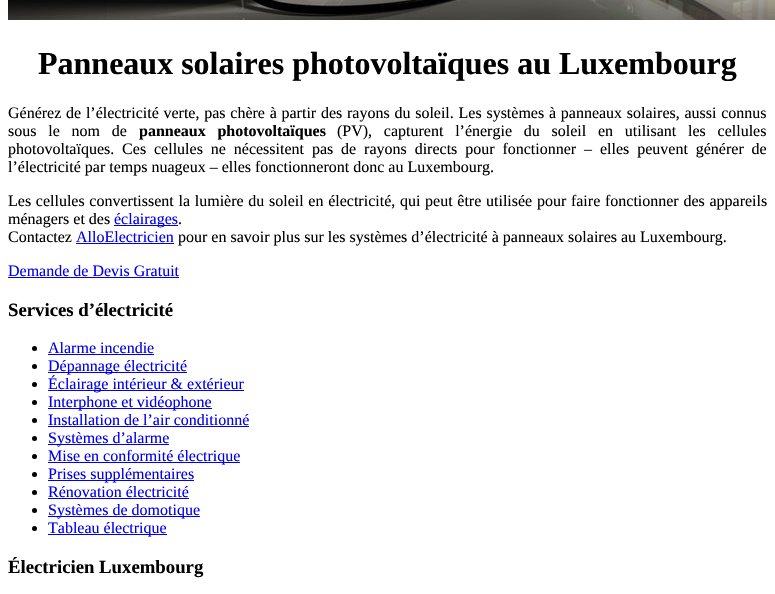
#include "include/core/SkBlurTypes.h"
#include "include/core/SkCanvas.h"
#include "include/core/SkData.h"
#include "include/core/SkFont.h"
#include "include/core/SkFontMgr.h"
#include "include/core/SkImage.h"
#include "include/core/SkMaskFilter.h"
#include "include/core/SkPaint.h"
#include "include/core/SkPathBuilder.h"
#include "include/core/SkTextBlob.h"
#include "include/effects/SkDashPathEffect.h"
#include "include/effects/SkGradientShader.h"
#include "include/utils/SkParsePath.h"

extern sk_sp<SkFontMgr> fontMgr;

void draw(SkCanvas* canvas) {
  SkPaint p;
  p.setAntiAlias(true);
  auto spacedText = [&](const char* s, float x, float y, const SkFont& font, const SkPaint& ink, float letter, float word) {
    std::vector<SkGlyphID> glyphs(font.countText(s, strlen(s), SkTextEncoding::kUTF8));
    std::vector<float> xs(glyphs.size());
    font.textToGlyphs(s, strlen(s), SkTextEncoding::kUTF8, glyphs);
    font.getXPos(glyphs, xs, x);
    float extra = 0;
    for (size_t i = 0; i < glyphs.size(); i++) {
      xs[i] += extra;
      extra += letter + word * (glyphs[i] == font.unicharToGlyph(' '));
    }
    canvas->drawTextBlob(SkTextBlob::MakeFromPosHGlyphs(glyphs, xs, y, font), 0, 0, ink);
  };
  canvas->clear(SK_ColorWHITE);
  canvas->drawImageRect(SkImages::DeferredFromEncodedData(SkData::MakeFromFileName("images/1.png")), SkRect::MakeLTRB(8, 0, 775, 20), SkSamplingOptions());
  p.setColor(SkColorSetRGB(0, 0, 238));
  canvas->drawRect(SkRect::MakeLTRB(114, 225, 178, 226), p);
  canvas->drawRect(SkRect::MakeLTRB(76, 243, 174, 244), p);
  canvas->drawRect(SkRect::MakeLTRB(8, 277, 179, 278), p);
  p.setColor(SK_ColorBLACK);
  canvas->drawCircle(34.5f, 348.5f, 2.5f, p);
  p.setColor(SkColorSetRGB(0, 0, 238));
  canvas->drawRect(SkRect::MakeLTRB(48, 354, 154, 355), p);
  p.setColor(SK_ColorBLACK);
  canvas->drawCircle(34.5f, 366.5f, 2.5f, p);
  p.setColor(SkColorSetRGB(0, 0, 238));
  canvas->drawRect(SkRect::MakeLTRB(48, 372, 187, 373), p);
  p.setColor(SK_ColorBLACK);
  canvas->drawCircle(34.5f, 384.5f, 2.5f, p);
  p.setColor(SkColorSetRGB(0, 0, 238));
  canvas->drawRect(SkRect::MakeLTRB(48, 390, 244, 391), p);
  p.setColor(SK_ColorBLACK);
  canvas->drawCircle(34.5f, 402.5f, 2.5f, p);
  p.setColor(SkColorSetRGB(0, 0, 238));
  canvas->drawRect(SkRect::MakeLTRB(48, 408, 212, 409), p);
  p.setColor(SK_ColorBLACK);
  canvas->drawCircle(34.5f, 420.5f, 2.5f, p);
  p.setColor(SkColorSetRGB(0, 0, 238));
  canvas->drawRect(SkRect::MakeLTRB(48, 426, 249, 427), p);
  p.setColor(SK_ColorBLACK);
  canvas->drawCircle(34.5f, 438.5f, 2.5f, p);
  p.setColor(SkColorSetRGB(0, 0, 238));
  canvas->drawRect(SkRect::MakeLTRB(48, 444, 169, 445), p);
  p.setColor(SK_ColorBLACK);
  canvas->drawCircle(34.5f, 456.5f, 2.5f, p);
  p.setColor(SkColorSetRGB(0, 0, 238));
  canvas->drawRect(SkRect::MakeLTRB(48, 462, 240, 463), p);
  p.setColor(SK_ColorBLACK);
  canvas->drawCircle(34.5f, 474.5f, 2.5f, p);
  p.setColor(SkColorSetRGB(0, 0, 238));
  canvas->drawRect(SkRect::MakeLTRB(48, 480, 194, 481), p);
  p.setColor(SK_ColorBLACK);
  canvas->drawCircle(34.5f, 492.5f, 2.5f, p);
  p.setColor(SkColorSetRGB(0, 0, 238));
  canvas->drawRect(SkRect::MakeLTRB(48, 498, 189, 499), p);
  p.setColor(SK_ColorBLACK);
  canvas->drawCircle(34.5f, 510.5f, 2.5f, p);
  p.setColor(SkColorSetRGB(0, 0, 238));
  canvas->drawRect(SkRect::MakeLTRB(48, 516, 200, 517), p);
  p.setColor(SK_ColorBLACK);
  canvas->drawCircle(34.5f, 528.5f, 2.5f, p);
  p.setColor(SkColorSetRGB(0, 0, 238));
  canvas->drawRect(SkRect::MakeLTRB(48, 534, 167, 535), p);
  SkFont font1(fontMgr->matchFamilyStyle("Liberation Serif", SkFontStyle::Bold()), 32);
  font1.setSubpixel(true);
  p.setColor(SK_ColorBLACK);
  canvas->drawString("Panneaux solaires photovoltaïques au Luxembourg", 38, 74, font1, p);
  SkFont font2(fontMgr->matchFamilyStyle("Liberation Serif", SkFontStyle::Normal()), 16);
  font2.setSubpixel(true);
  spacedText("Générez de l’électricité verte, pas chère à partir des rayons du soleil. Les systèmes à panneaux solaires, aussi connus", 8, 118, font2, p, 0, 0.75f);
  spacedText("sous le nom de", 8, 136, font2, p, 0, 7.75f);
  SkFont font3(fontMgr->matchFamilyStyle("Liberation Serif", SkFontStyle::Bold()), 16);
  font3.setSubpixel(true);
  spacedText("panneaux photovoltaïques", 139, 136, font3, p, 0, 7.75f);
  spacedText("(PV), capturent l’énergie du soleil en utilisant les cellules", 337, 136, font2, p, 0, 7.75f);
  spacedText("photovoltaïques. Ces cellules ne nécessitent pas de rayons directs pour fonctionner – elles peuvent générer de", 8, 154, font2, p, 0, 3.9f);
  canvas->drawString("l’électricité par temps nuageux – elles fonctionneront donc au Luxembourg.", 8, 172, font2, p);
  spacedText("Les cellules convertissent la lumière du soleil en électricité, qui peut être utilisée pour faire fonctionner des appareils", 8, 206, font2, p, 0, 0.7f);
  canvas->drawString("ménagers et des", 8, 224, font2, p);
  p.setColor(SkColorSetRGB(0, 0, 238));
  canvas->drawString("éclairages", 114, 224, font2, p);
  p.setColor(SK_ColorBLACK);
  canvas->drawString(".", 178, 224, font2, p);
  canvas->drawString("Contactez", 8, 242, font2, p);
  p.setColor(SkColorSetRGB(0, 0, 238));
  canvas->drawString("AlloElectricien", 76, 242, font2, p);
  p.setColor(SK_ColorBLACK);
  canvas->drawString("pour en savoir plus sur les systèmes d’électricité à panneaux solaires au Luxembourg.", 178, 242, font2, p);
  p.setColor(SkColorSetRGB(0, 0, 238));
  canvas->drawString("Demande de Devis Gratuit", 8, 276, font2, p);
  SkFont font4(fontMgr->matchFamilyStyle("Liberation Serif", SkFontStyle::Bold()), 18.75f);
  font4.setSubpixel(true);
  p.setColor(SK_ColorBLACK);
  canvas->drawString("Services d’électricité", 8, 316, font4, p);
  p.setColor(SkColorSetRGB(0, 0, 238));
  canvas->drawString("Alarme incendie", 48, 353, font2, p);
  canvas->drawString("Dépannage électricité", 48, 371, font2, p);
  canvas->drawString("Éclairage intérieur & extérieur", 48, 389, font2, p);
  canvas->drawString("Interphone et vidéophone", 48, 407, font2, p);
  canvas->drawString("Installation de l’air conditionné", 48, 425, font2, p);
  canvas->drawString("Systèmes d’alarme", 48, 443, font2, p);
  canvas->drawString("Mise en conformité électrique", 48, 461, font2, p);
  canvas->drawString("Prises supplémentaires", 48, 479, font2, p);
  canvas->drawString("Rénovation électricité", 48, 497, font2, p);
  canvas->drawString("Systèmes de domotique", 48, 515, font2, p);
  canvas->drawString("Tableau électrique", 48, 533, font2, p);
  p.setColor(SK_ColorBLACK);
  canvas->drawString("Électricien Luxembourg", 8, 573, font4, p);
}
